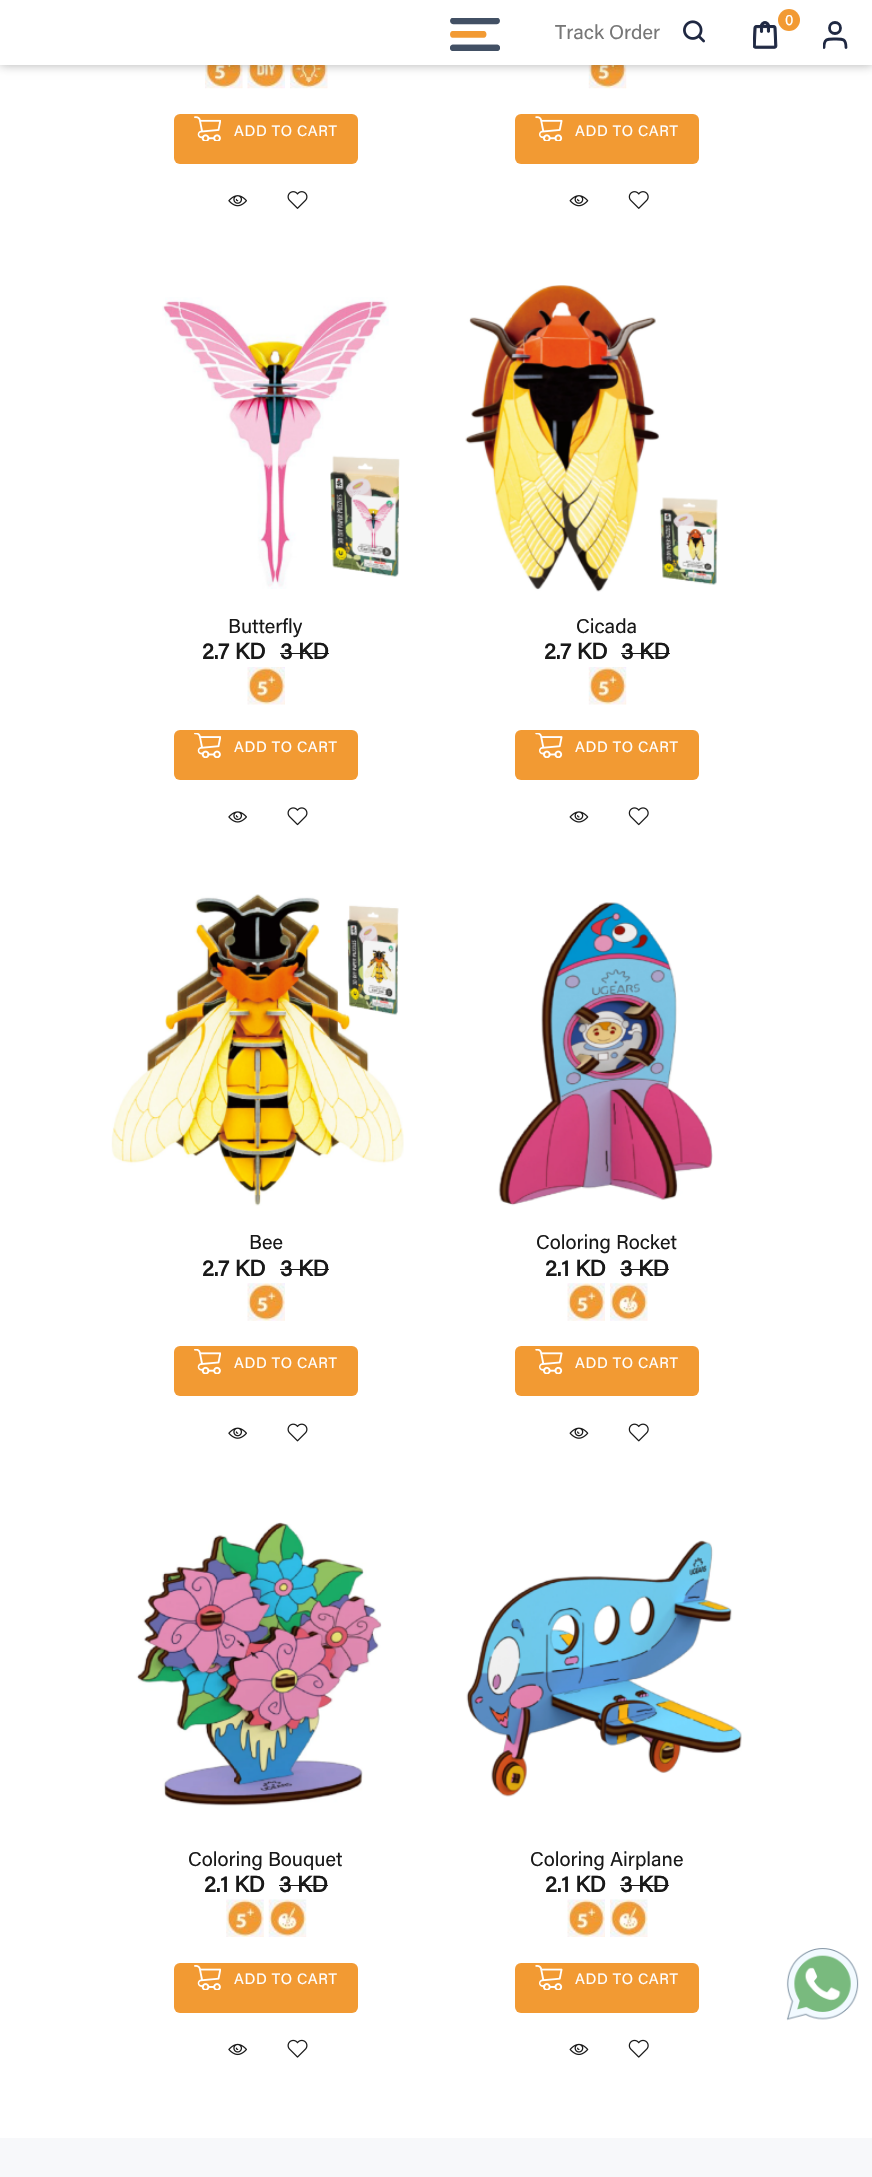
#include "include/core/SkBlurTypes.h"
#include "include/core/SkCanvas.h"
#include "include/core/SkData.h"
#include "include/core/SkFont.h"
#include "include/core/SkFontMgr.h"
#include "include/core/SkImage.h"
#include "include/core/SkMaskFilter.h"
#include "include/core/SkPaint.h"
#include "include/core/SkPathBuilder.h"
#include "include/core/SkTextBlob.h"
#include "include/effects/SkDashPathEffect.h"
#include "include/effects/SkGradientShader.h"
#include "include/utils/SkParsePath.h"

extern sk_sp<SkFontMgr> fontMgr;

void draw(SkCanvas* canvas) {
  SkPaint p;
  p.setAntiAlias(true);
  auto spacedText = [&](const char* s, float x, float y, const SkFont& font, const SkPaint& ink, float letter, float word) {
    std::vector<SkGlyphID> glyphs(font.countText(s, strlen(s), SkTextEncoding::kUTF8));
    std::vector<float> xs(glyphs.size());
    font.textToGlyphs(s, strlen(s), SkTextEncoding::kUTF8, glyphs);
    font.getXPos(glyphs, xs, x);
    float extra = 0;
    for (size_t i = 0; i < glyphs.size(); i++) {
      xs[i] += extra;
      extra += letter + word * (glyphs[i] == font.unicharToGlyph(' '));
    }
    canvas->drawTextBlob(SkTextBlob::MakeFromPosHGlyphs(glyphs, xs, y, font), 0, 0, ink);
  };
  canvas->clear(SK_ColorWHITE);
  canvas->drawImageRect(SkImages::DeferredFromEncodedData(SkData::MakeFromFileName("images/4.png")), SkRect::MakeLTRB(205, 65, 243, 89), SkSamplingOptions());
  canvas->drawImageRect(SkImages::DeferredFromEncodedData(SkData::MakeFromFileName("images/5.png")), SkRect::MakeLTRB(247, 65, 285, 89), SkSamplingOptions());
  canvas->drawImageRect(SkImages::DeferredFromEncodedData(SkData::MakeFromFileName("images/6.png")), SkRect::MakeLTRB(290, 65, 328, 89), SkSamplingOptions());
  canvas->drawImageRect(SkImages::DeferredFromEncodedData(SkData::MakeFromFileName("images/10.png")), SkRect::MakeLTRB(588, 65, 627, 89), SkSamplingOptions());
  p.setColor(SkColorSetARGB(77, 0, 0, 0));
  p.setMaskFilter(SkMaskFilter::MakeBlur(kNormal_SkBlurStyle, 5));
  canvas->drawRect(SkRect::MakeLTRB(0, 0, 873, 65), p);
  p.setMaskFilter(nullptr);
  p.setColor(SK_ColorWHITE);
  canvas->drawRect(SkRect::MakeLTRB(0, 0, 872, 65), p);
  canvas->drawImageRect(SkImages::DeferredFromEncodedData(SkData::MakeFromFileName("images/1.png")), SkRect::MakeLTRB(450, 18, 500, 51), SkSamplingOptions());
  canvas->drawImageRect(SkImages::DeferredFromEncodedData(SkData::MakeFromFileName("images/2.png")), SkRect::MakeLTRB(683, 20, 705, 43), SkSamplingOptions());
  canvas->drawImageRect(SkImages::DeferredFromEncodedData(SkData::MakeFromFileName("images/3.png")), SkRect::MakeLTRB(753, 21, 778, 49), SkSamplingOptions());
  p.setColor(SkColorSetRGB(242, 154, 51));
  canvas->drawCircle(789, 20, 11, p);
  p.setStyle(SkPaint::kStroke_Style);
  p.setStrokeWidth(2.8f);
  p.setColor(SkColorSetRGB(31, 40, 66));
  canvas->drawCircle(835, 28, 5.5f, p);
  canvas->save();
  canvas->clipRect(SkRect::MakeLTRB(823, 21, 848, 49));
  p.setStrokeCap(SkPaint::kRound_Cap);
  canvas->drawPath(SkPathBuilder().moveTo(846, 47.5f).cubicTo(846, 38.5f, 842.5f, 39, 835, 39).cubicTo(827.5f, 39, 824, 38.5f, 824, 47.5f).detach(), p);
  canvas->restore();
  p.setStyle(SkPaint::kFill_Style);
  p.setColor(SkColorSetRGB(242, 154, 51));
  canvas->drawRoundRect(SkRect::MakeLTRB(174, 114, 358, 164), 6, 6, p);
  canvas->drawImageRect(SkImages::DeferredFromEncodedData(SkData::MakeFromFileName("images/7.png")), SkRect::MakeLTRB(194, 116, 221, 141), SkSamplingOptions());
  canvas->drawImageRect(SkImages::DeferredFromEncodedData(SkData::MakeFromFileName("images/8.png")), SkRect::MakeLTRB(228, 195, 247, 207), SkSamplingOptions());
  canvas->drawImageRect(SkImages::DeferredFromEncodedData(SkData::MakeFromFileName("images/9.png")), SkRect::MakeLTRB(287, 191, 308, 209), SkSamplingOptions());
  canvas->drawRoundRect(SkRect::MakeLTRB(515, 114, 699, 164), 6, 6, p);
  canvas->drawImageRect(SkImages::DeferredFromEncodedData(SkData::MakeFromFileName("images/11.png")), SkRect::MakeLTRB(535, 116, 563, 141), SkSamplingOptions());
  canvas->drawImageRect(SkImages::DeferredFromEncodedData(SkData::MakeFromFileName("images/12.png")), SkRect::MakeLTRB(569, 195, 589, 207), SkSamplingOptions());
  canvas->drawImageRect(SkImages::DeferredFromEncodedData(SkData::MakeFromFileName("images/13.png")), SkRect::MakeLTRB(628, 191, 649, 209), SkSamplingOptions());
  canvas->drawImageRect(SkImages::DeferredFromEncodedData(SkData::MakeFromFileName("images/14.png")), SkRect::MakeLTRB(162, 297, 400, 589), SkSamplingOptions());
  p.setColor(SkColorSetRGB(25, 25, 25));
  canvas->drawRect(SkRect::MakeLTRB(280, 653, 329, 654), p);
  canvas->drawImageRect(SkImages::DeferredFromEncodedData(SkData::MakeFromFileName("images/15.png")), SkRect::MakeLTRB(247, 667, 285, 705), SkSamplingOptions());
  p.setColor(SkColorSetRGB(242, 154, 51));
  canvas->drawRoundRect(SkRect::MakeLTRB(174, 730, 358, 780), 6, 6, p);
  canvas->drawImageRect(SkImages::DeferredFromEncodedData(SkData::MakeFromFileName("images/16.png")), SkRect::MakeLTRB(194, 733, 221, 758), SkSamplingOptions());
  canvas->drawImageRect(SkImages::DeferredFromEncodedData(SkData::MakeFromFileName("images/17.png")), SkRect::MakeLTRB(228, 811, 247, 823), SkSamplingOptions());
  canvas->drawImageRect(SkImages::DeferredFromEncodedData(SkData::MakeFromFileName("images/18.png")), SkRect::MakeLTRB(287, 807, 308, 826), SkSamplingOptions());
  canvas->drawImageRect(SkImages::DeferredFromEncodedData(SkData::MakeFromFileName("images/19.png")), SkRect::MakeLTRB(465, 285, 718, 592), SkSamplingOptions());
  p.setColor(SkColorSetRGB(25, 25, 25));
  canvas->drawRect(SkRect::MakeLTRB(621, 653, 670, 654), p);
  canvas->drawImageRect(SkImages::DeferredFromEncodedData(SkData::MakeFromFileName("images/20.png")), SkRect::MakeLTRB(588, 667, 627, 705), SkSamplingOptions());
  p.setColor(SkColorSetRGB(242, 154, 51));
  canvas->drawRoundRect(SkRect::MakeLTRB(515, 730, 699, 780), 6, 6, p);
  canvas->drawImageRect(SkImages::DeferredFromEncodedData(SkData::MakeFromFileName("images/21.png")), SkRect::MakeLTRB(535, 733, 563, 758), SkSamplingOptions());
  canvas->drawImageRect(SkImages::DeferredFromEncodedData(SkData::MakeFromFileName("images/22.png")), SkRect::MakeLTRB(569, 811, 589, 823), SkSamplingOptions());
  canvas->drawImageRect(SkImages::DeferredFromEncodedData(SkData::MakeFromFileName("images/23.png")), SkRect::MakeLTRB(628, 807, 649, 826), SkSamplingOptions());
  canvas->drawImageRect(SkImages::DeferredFromEncodedData(SkData::MakeFromFileName("images/24.png")), SkRect::MakeLTRB(111, 894, 404, 1206), SkSamplingOptions());
  p.setColor(SkColorSetRGB(25, 25, 25));
  canvas->drawRect(SkRect::MakeLTRB(280, 1269, 329, 1270), p);
  canvas->drawImageRect(SkImages::DeferredFromEncodedData(SkData::MakeFromFileName("images/25.png")), SkRect::MakeLTRB(247, 1283, 285, 1321), SkSamplingOptions());
  p.setColor(SkColorSetRGB(242, 154, 51));
  canvas->drawRoundRect(SkRect::MakeLTRB(174, 1346, 358, 1396), 6, 6, p);
  canvas->drawImageRect(SkImages::DeferredFromEncodedData(SkData::MakeFromFileName("images/26.png")), SkRect::MakeLTRB(194, 1349, 221, 1374), SkSamplingOptions());
  canvas->drawImageRect(SkImages::DeferredFromEncodedData(SkData::MakeFromFileName("images/27.png")), SkRect::MakeLTRB(228, 1427, 247, 1439), SkSamplingOptions());
  canvas->drawImageRect(SkImages::DeferredFromEncodedData(SkData::MakeFromFileName("images/28.png")), SkRect::MakeLTRB(287, 1423, 308, 1442), SkSamplingOptions());
  canvas->drawImageRect(SkImages::DeferredFromEncodedData(SkData::MakeFromFileName("images/29.png")), SkRect::MakeLTRB(498, 902, 713, 1206), SkSamplingOptions());
  p.setColor(SkColorSetRGB(25, 25, 25));
  canvas->drawRect(SkRect::MakeLTRB(620, 1269, 669, 1270), p);
  canvas->drawImageRect(SkImages::DeferredFromEncodedData(SkData::MakeFromFileName("images/30.png")), SkRect::MakeLTRB(567, 1283, 605, 1321), SkSamplingOptions());
  canvas->drawImageRect(SkImages::DeferredFromEncodedData(SkData::MakeFromFileName("images/31.png")), SkRect::MakeLTRB(610, 1283, 648, 1321), SkSamplingOptions());
  p.setColor(SkColorSetRGB(242, 154, 51));
  canvas->drawRoundRect(SkRect::MakeLTRB(515, 1346, 699, 1396), 6, 6, p);
  canvas->drawImageRect(SkImages::DeferredFromEncodedData(SkData::MakeFromFileName("images/32.png")), SkRect::MakeLTRB(535, 1349, 563, 1374), SkSamplingOptions());
  canvas->drawImageRect(SkImages::DeferredFromEncodedData(SkData::MakeFromFileName("images/33.png")), SkRect::MakeLTRB(569, 1427, 589, 1439), SkSamplingOptions());
  canvas->drawImageRect(SkImages::DeferredFromEncodedData(SkData::MakeFromFileName("images/34.png")), SkRect::MakeLTRB(628, 1423, 649, 1442), SkSamplingOptions());
  canvas->drawImageRect(SkImages::DeferredFromEncodedData(SkData::MakeFromFileName("images/35.png")), SkRect::MakeLTRB(136, 1522, 382, 1806), SkSamplingOptions());
  p.setColor(SkColorSetRGB(25, 25, 25));
  canvas->drawRect(SkRect::MakeLTRB(279, 1885, 328, 1886), p);
  canvas->drawImageRect(SkImages::DeferredFromEncodedData(SkData::MakeFromFileName("images/36.png")), SkRect::MakeLTRB(226, 1899, 264, 1937), SkSamplingOptions());
  canvas->drawImageRect(SkImages::DeferredFromEncodedData(SkData::MakeFromFileName("images/37.png")), SkRect::MakeLTRB(268, 1899, 307, 1937), SkSamplingOptions());
  p.setColor(SkColorSetRGB(242, 154, 51));
  canvas->drawRoundRect(SkRect::MakeLTRB(174, 1963, 358, 2013), 6, 6, p);
  canvas->drawImageRect(SkImages::DeferredFromEncodedData(SkData::MakeFromFileName("images/38.png")), SkRect::MakeLTRB(194, 1965, 221, 1990), SkSamplingOptions());
  canvas->drawImageRect(SkImages::DeferredFromEncodedData(SkData::MakeFromFileName("images/39.png")), SkRect::MakeLTRB(228, 2043, 247, 2056), SkSamplingOptions());
  canvas->drawImageRect(SkImages::DeferredFromEncodedData(SkData::MakeFromFileName("images/40.png")), SkRect::MakeLTRB(287, 2039, 308, 2058), SkSamplingOptions());
  canvas->drawImageRect(SkImages::DeferredFromEncodedData(SkData::MakeFromFileName("images/41.png")), SkRect::MakeLTRB(466, 1540, 742, 1797), SkSamplingOptions());
  p.setColor(SkColorSetRGB(25, 25, 25));
  canvas->drawRect(SkRect::MakeLTRB(620, 1885, 669, 1886), p);
  canvas->drawImageRect(SkImages::DeferredFromEncodedData(SkData::MakeFromFileName("images/42.png")), SkRect::MakeLTRB(567, 1899, 605, 1937), SkSamplingOptions());
  canvas->drawImageRect(SkImages::DeferredFromEncodedData(SkData::MakeFromFileName("images/43.png")), SkRect::MakeLTRB(610, 1899, 648, 1937), SkSamplingOptions());
  p.setColor(SkColorSetRGB(242, 154, 51));
  canvas->drawRoundRect(SkRect::MakeLTRB(515, 1963, 699, 2013), 6, 6, p);
  canvas->drawImageRect(SkImages::DeferredFromEncodedData(SkData::MakeFromFileName("images/44.png")), SkRect::MakeLTRB(535, 1965, 563, 1990), SkSamplingOptions());
  canvas->drawImageRect(SkImages::DeferredFromEncodedData(SkData::MakeFromFileName("images/45.png")), SkRect::MakeLTRB(569, 2043, 589, 2056), SkSamplingOptions());
  canvas->drawImageRect(SkImages::DeferredFromEncodedData(SkData::MakeFromFileName("images/46.png")), SkRect::MakeLTRB(628, 2039, 649, 2058), SkSamplingOptions());
  canvas->drawImageRect(SkImages::DeferredFromEncodedData(SkData::MakeFromFileName("images/47.png")), SkRect::MakeLTRB(786, 1948, 859, 2021), SkSamplingOptions());
  p.setColor(SkColorSetRGB(247, 248, 250));
  canvas->drawRect(SkRect::MakeLTRB(0, 2138, 872, 2177), p);
  SkFont font1(fontMgr->matchFamilyStyle("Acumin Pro", SkFontStyle::Normal()), 20);
  font1.setSubpixel(true);
  p.setColor(SkColorSetRGB(119, 119, 119));
  canvas->drawString("Track Order", 555, 39, font1, p);
  SkFont font2(fontMgr->matchFamilyStyle("Acumin Pro", SkFontStyle::Normal()), 15);
  font2.setSubpixel(true);
  p.setColor(SK_ColorWHITE);
  canvas->drawString("0", 785, 25, font2, p);
  spacedText("ADD TO CART", 234, 136, font2, p, 0.6f, 0);
  spacedText("ADD TO CART", 575, 136, font2, p, 0.6f, 0);
  p.setColor(SkColorSetRGB(25, 25, 25));
  canvas->drawString("Butterfly", 228, 633, font1, p);
  SkFont font3(fontMgr->matchFamilyStyle("Acumin Pro", SkFontStyle::Bold()), 22.5f);
  font3.setSubpixel(true);
  canvas->drawString("2.7 KD", 202, 659, font3, p);
  canvas->drawString("3 KD", 280, 659, font3, p);
  p.setColor(SK_ColorWHITE);
  spacedText("ADD TO CART", 234, 752, font2, p, 0.6f, 0);
  p.setColor(SkColorSetRGB(25, 25, 25));
  canvas->drawString("Cicada", 576, 633, font1, p);
  canvas->drawString("2.7 KD", 544, 659, font3, p);
  canvas->drawString("3 KD", 621, 659, font3, p);
  p.setColor(SK_ColorWHITE);
  spacedText("ADD TO CART", 575, 752, font2, p, 0.6f, 0);
  p.setColor(SkColorSetRGB(25, 25, 25));
  canvas->drawString("Bee", 249, 1249, font1, p);
  canvas->drawString("2.7 KD", 202, 1276, font3, p);
  canvas->drawString("3 KD", 280, 1276, font3, p);
  p.setColor(SK_ColorWHITE);
  spacedText("ADD TO CART", 234, 1368, font2, p, 0.6f, 0);
  p.setColor(SkColorSetRGB(25, 25, 25));
  canvas->drawString("Coloring Rocket", 536, 1249, font1, p);
  canvas->drawString("2.1 KD", 545, 1276, font3, p);
  canvas->drawString("3 KD", 620, 1276, font3, p);
  p.setColor(SK_ColorWHITE);
  spacedText("ADD TO CART", 575, 1368, font2, p, 0.6f, 0);
  p.setColor(SkColorSetRGB(25, 25, 25));
  canvas->drawString("Coloring Bouquet", 188, 1866, font1, p);
  canvas->drawString("2.1 KD", 204, 1892, font3, p);
  canvas->drawString("3 KD", 279, 1892, font3, p);
  p.setColor(SK_ColorWHITE);
  spacedText("ADD TO CART", 234, 1984, font2, p, 0.6f, 0);
  p.setColor(SkColorSetRGB(25, 25, 25));
  canvas->drawString("Coloring Airplane", 530, 1866, font1, p);
  canvas->drawString("2.1 KD", 545, 1892, font3, p);
  canvas->drawString("3 KD", 620, 1892, font3, p);
  p.setColor(SK_ColorWHITE);
  spacedText("ADD TO CART", 575, 1984, font2, p, 0.6f, 0);
}
